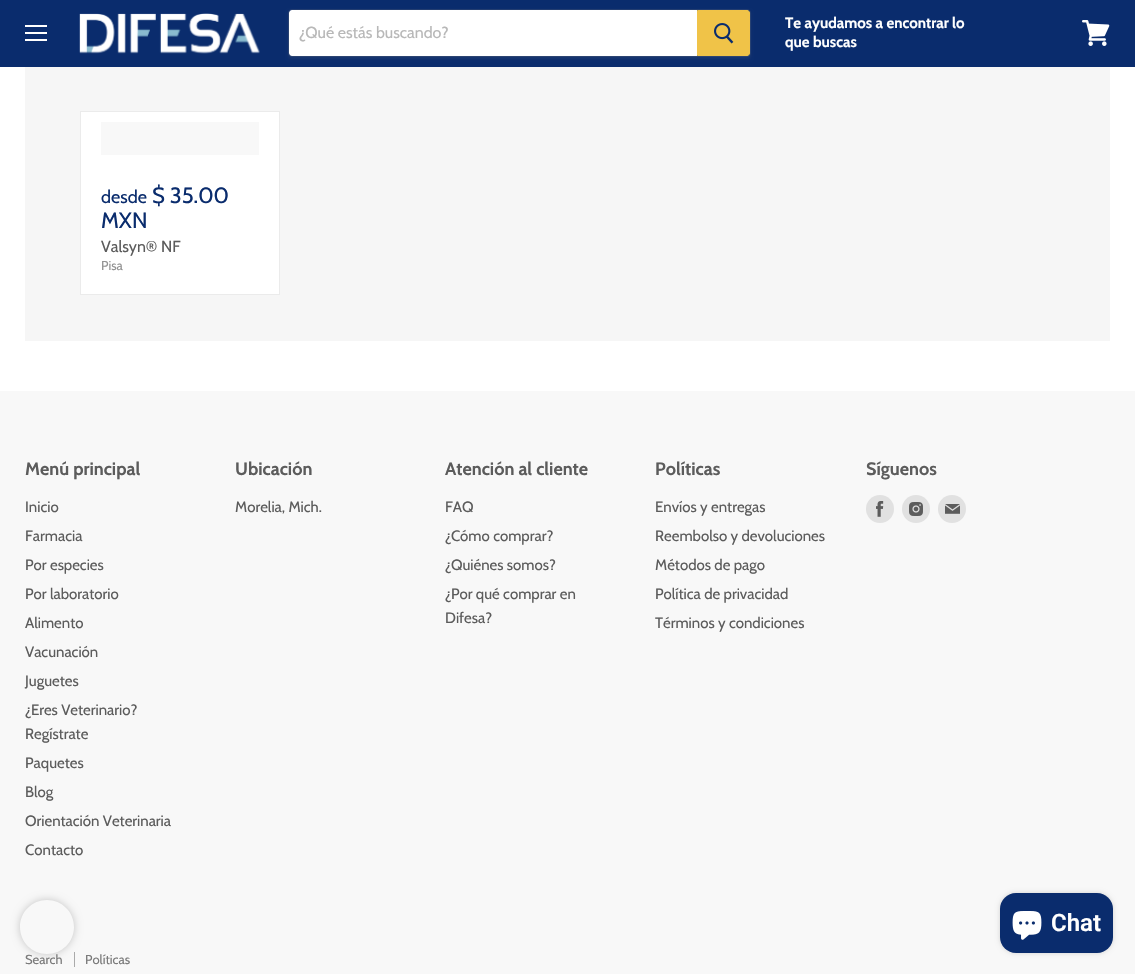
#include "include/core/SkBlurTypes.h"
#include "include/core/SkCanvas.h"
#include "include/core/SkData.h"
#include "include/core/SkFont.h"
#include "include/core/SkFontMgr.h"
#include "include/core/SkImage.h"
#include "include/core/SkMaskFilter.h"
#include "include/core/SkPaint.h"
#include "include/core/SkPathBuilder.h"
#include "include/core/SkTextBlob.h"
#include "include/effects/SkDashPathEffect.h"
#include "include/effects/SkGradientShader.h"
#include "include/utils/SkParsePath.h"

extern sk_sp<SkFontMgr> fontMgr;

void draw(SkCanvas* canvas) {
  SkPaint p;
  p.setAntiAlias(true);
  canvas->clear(SK_ColorWHITE);
  p.setColor(SkColorSetRGB(10, 44, 109));
  canvas->drawRect(SkRect::MakeLTRB(0, 0, 1135, 67), p);
  p.setColor(SK_ColorWHITE);
  canvas->drawRect(SkRect::MakeLTRB(25, 25, 47, 27), p);
  canvas->drawRect(SkRect::MakeLTRB(25, 32, 47, 34), p);
  canvas->drawRect(SkRect::MakeLTRB(25, 39, 47, 41), p);
  canvas->drawImageRect(SkImages::DeferredFromEncodedData(SkData::MakeFromFileName("images/1.png")), SkRect::MakeLTRB(79, 13, 260, 54), SkSamplingOptions());
  p.setColor(SkColorSetARGB(28, 127, 127, 127));
  p.setMaskFilter(SkMaskFilter::MakeBlur(kNormal_SkBlurStyle, 1.5f));
  canvas->drawRoundRect(SkRect::MakeLTRB(288, 11, 751, 59), 4, 4, p);
  p.setMaskFilter(nullptr);
  p.setStyle(SkPaint::kStroke_Style);
  p.setStrokeWidth(1);
  p.setColor(SkColorSetARGB(51, 127, 127, 127));
  canvas->drawRoundRect(SkRect::MakeLTRB(288.5f, 9.5f, 750.5f, 56.5f), 3.5f, 3.5f, p);
  p.setStyle(SkPaint::kFill_Style);
  p.setColor(SK_ColorWHITE);
  canvas->drawPath(SkPathBuilder().moveTo(292, 10).lineTo(697, 10).lineTo(697, 56).lineTo(292, 56).cubicTo(290.5f, 56, 289, 54.5f, 289, 53).lineTo(289, 13).cubicTo(289, 11.5f, 290.5f, 10, 292, 10).close().detach(), p);
  p.setColor(SkColorSetRGB(240, 195, 72));
  canvas->drawPath(SkPathBuilder().moveTo(697.5f, 10.5f).lineTo(747, 10.5f).cubicTo(748.5f, 10.5f, 749.5f, 11.5f, 749.5f, 13).lineTo(749.5f, 53).cubicTo(749.5f, 54.5f, 748.5f, 55.5f, 747, 55.5f).lineTo(697.5f, 55.5f).close().detach(), p);
  p.setStyle(SkPaint::kStroke_Style);
  canvas->drawPath(SkPathBuilder().moveTo(697.5f, 10.5f).lineTo(747, 10.5f).cubicTo(748.5f, 10.5f, 749.5f, 11.5f, 749.5f, 13).lineTo(749.5f, 53).cubicTo(749.5f, 54.5f, 748.5f, 55.5f, 747, 55.5f).lineTo(697.5f, 55.5f).close().detach(), p);
  canvas->drawImageRect(SkImages::DeferredFromEncodedData(SkData::MakeFromFileName("images/2.png")), SkRect::MakeLTRB(714, 23, 734, 44), SkSamplingOptions());
  canvas->drawImageRect(SkImages::DeferredFromEncodedData(SkData::MakeFromFileName("images/3.png")), SkRect::MakeLTRB(1082, 20, 1110, 46), SkSamplingOptions());
  p.setStyle(SkPaint::kFill_Style);
  p.setColor(SkColorSetRGB(246, 246, 246));
  canvas->drawRect(SkRect::MakeLTRB(25, 67, 1110, 341), p);
  p.setColor(SK_ColorWHITE);
  canvas->drawRect(SkRect::MakeLTRB(80.5f, 111.5f, 279.5f, 294.5f), p);
  p.setStyle(SkPaint::kStroke_Style);
  p.setColor(SkColorSetRGB(235, 235, 235));
  canvas->drawRect(SkRect::MakeLTRB(80.5f, 111.5f, 279.5f, 294.5f), p);
  p.setStyle(SkPaint::kFill_Style);
  p.setColor(SkColorSetRGB(248, 248, 248));
  canvas->drawRect(SkRect::MakeLTRB(101, 122, 259, 155), p);
  canvas->drawRect(SkRect::MakeLTRB(0, 391, 1135, 974), p);
  p.setColor(SkColorSetRGB(225, 225, 225));
  canvas->drawCircle(880, 509, 14, p);
  canvas->drawImageRect(SkImages::DeferredFromEncodedData(SkData::MakeFromFileName("images/4.png")), SkRect::MakeLTRB(876, 501, 884, 517), SkSamplingOptions());
  canvas->drawCircle(916, 509, 14, p);
  canvas->drawImageRect(SkImages::DeferredFromEncodedData(SkData::MakeFromFileName("images/5.png")), SkRect::MakeLTRB(909, 502, 923, 516), SkSamplingOptions());
  canvas->drawCircle(952, 509, 14, p);
  canvas->drawImageRect(SkImages::DeferredFromEncodedData(SkData::MakeFromFileName("images/6.png")), SkRect::MakeLTRB(945, 504, 960, 514), SkSamplingOptions());
  p.setColor(SkColorSetRGB(170, 170, 170));
  canvas->drawRect(SkRect::MakeLTRB(74, 952, 75, 967), p);
  canvas->save();
  canvas->clipPath(SkPathBuilder(SkPathFillType::kEvenOdd).moveTo(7, 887).lineTo(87, 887).lineTo(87, 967).lineTo(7, 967).close().moveTo(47, 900).cubicTo(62, 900, 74, 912, 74, 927).cubicTo(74, 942, 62, 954, 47, 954).cubicTo(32, 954, 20, 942, 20, 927).cubicTo(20, 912, 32, 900, 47, 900).close().detach(), true);
  p.setColor(SkColorSetRGB(194, 194, 194));
  p.setMaskFilter(SkMaskFilter::MakeBlur(kNormal_SkBlurStyle, 4));
  canvas->drawRoundRect(SkRect::MakeLTRB(20, 900, 74, 954), 27, 27, p);
  p.setMaskFilter(nullptr);
  canvas->restore();
  p.setColor(SkColorSetARGB(38, 0, 0, 0));
  p.setMaskFilter(SkMaskFilter::MakeBlur(kNormal_SkBlurStyle, 2.5f));
  canvas->drawRoundRect(SkRect::MakeLTRB(1000, 893, 1113, 953), 16, 16, p);
  p.setMaskFilter(nullptr);
  p.setColor(SkColorSetRGB(10, 44, 109));
  canvas->drawRoundRect(SkRect::MakeLTRB(1000, 893, 1113, 953), 16, 16, p);
  canvas->drawImageRect(SkImages::DeferredFromEncodedData(SkData::MakeFromFileName("images/7.png")), SkRect::MakeLTRB(1012, 911, 1042, 940), SkSamplingOptions());
  SkFont font1(fontMgr->matchFamilyStyle("Cabin", SkFontStyle::Normal()), 16);
  font1.setSubpixel(true);
  p.setColor(SkColorSetRGB(184, 184, 184));
  canvas->drawString("¿Qué estás buscando?", 299, 38, font1, p);
  SkFont font2(fontMgr->matchFamilyStyle("Cabin", SkFontStyle::Bold()), 15);
  font2.setSubpixel(true);
  p.setColor(SK_ColorWHITE);
  canvas->drawString("Te ayudamos a encontrar lo", 785, 28, font2, p);
  canvas->drawString("que buscas", 785, 47, font2, p);
  SkFont font3(fontMgr->matchFamilyStyle("Cabin", SkFontStyle::Normal()), 18);
  font3.setSubpixel(true);
  p.setColor(SkColorSetRGB(10, 44, 109));
  canvas->drawString("desde", 101, 203, font3, p);
  SkFont font4(fontMgr->matchFamilyStyle("Cabin", SkFontStyle::Normal()), 22);
  font4.setSubpixel(true);
  canvas->drawString("$ 35.00", 152, 203, font4, p);
  canvas->drawString("MXN", 101, 228, font4, p);
  p.setColor(SkColorSetRGB(92, 92, 92));
  canvas->drawString("Valsyn® NF", 101, 252, font1, p);
  SkFont font5(fontMgr->matchFamilyStyle("Cabin", SkFontStyle::Normal()), 13);
  font5.setSubpixel(true);
  p.setColor(SkColorSetRGB(148, 148, 148));
  canvas->drawString("Pisa", 101, 270, font5, p);
  SkFont font6(fontMgr->matchFamilyStyle("Cabin", SkFontStyle::Bold()), 18);
  font6.setSubpixel(true);
  p.setColor(SkColorSetRGB(92, 92, 92));
  canvas->drawString("Menú principal", 25, 475, font6, p);
  SkFont font7(fontMgr->matchFamilyStyle("Cabin", SkFontStyle::Normal()), 15);
  font7.setSubpixel(true);
  canvas->drawString("Inicio", 25, 512, font7, p);
  canvas->drawString("Farmacia", 25, 541, font7, p);
  canvas->drawString("Por especies", 25, 570, font7, p);
  canvas->drawString("Por laboratorio", 25, 599, font7, p);
  canvas->drawString("Alimento", 25, 628, font7, p);
  canvas->drawString("Vacunación", 25, 657, font7, p);
  canvas->drawString("Juguetes", 25, 686, font7, p);
  canvas->drawString("¿Eres Veterinario?", 25, 715, font7, p);
  canvas->drawString("Regístrate", 25, 739, font7, p);
  canvas->drawString("Paquetes", 25, 768, font7, p);
  canvas->drawString("Blog", 25, 797, font7, p);
  canvas->drawString("Orientación Veterinaria", 25, 826, font7, p);
  canvas->drawString("Contacto", 25, 855, font7, p);
  canvas->drawString("Ubicación", 235, 475, font6, p);
  canvas->drawString("Morelia, Mich.", 235, 512, font7, p);
  canvas->drawString("Atención al cliente", 445, 475, font6, p);
  canvas->drawString("FAQ", 445, 512, font7, p);
  canvas->drawString("¿Cómo comprar?", 445, 541, font7, p);
  canvas->drawString("¿Quiénes somos?", 445, 570, font7, p);
  canvas->drawString("¿Por qué comprar en", 445, 599, font7, p);
  canvas->drawString("Difesa?", 445, 623, font7, p);
  canvas->drawString("Políticas", 655, 475, font6, p);
  canvas->drawString("Envíos y entregas", 655, 512, font7, p);
  canvas->drawString("Reembolso y devoluciones", 655, 541, font7, p);
  canvas->drawString("Métodos de pago", 655, 570, font7, p);
  canvas->drawString("Política de privacidad", 655, 599, font7, p);
  canvas->drawString("Términos y condiciones", 655, 628, font7, p);
  canvas->drawString("Síguenos", 866, 475, font6, p);
  p.setColor(SkColorSetRGB(123, 123, 123));
  canvas->drawString("Search", 25, 964, font5, p);
  canvas->drawString("Políticas", 85, 964, font5, p);
  SkFont font8(fontMgr->matchFamilyStyle("Roboto", SkFontStyle(600, SkFontStyle::kNormal_Width, SkFontStyle::kUpright_Slant)), 24);
  font8.setSubpixel(true);
  p.setColor(SK_ColorWHITE);
  canvas->drawString("Chat", 1051, 931, font8, p);
}
